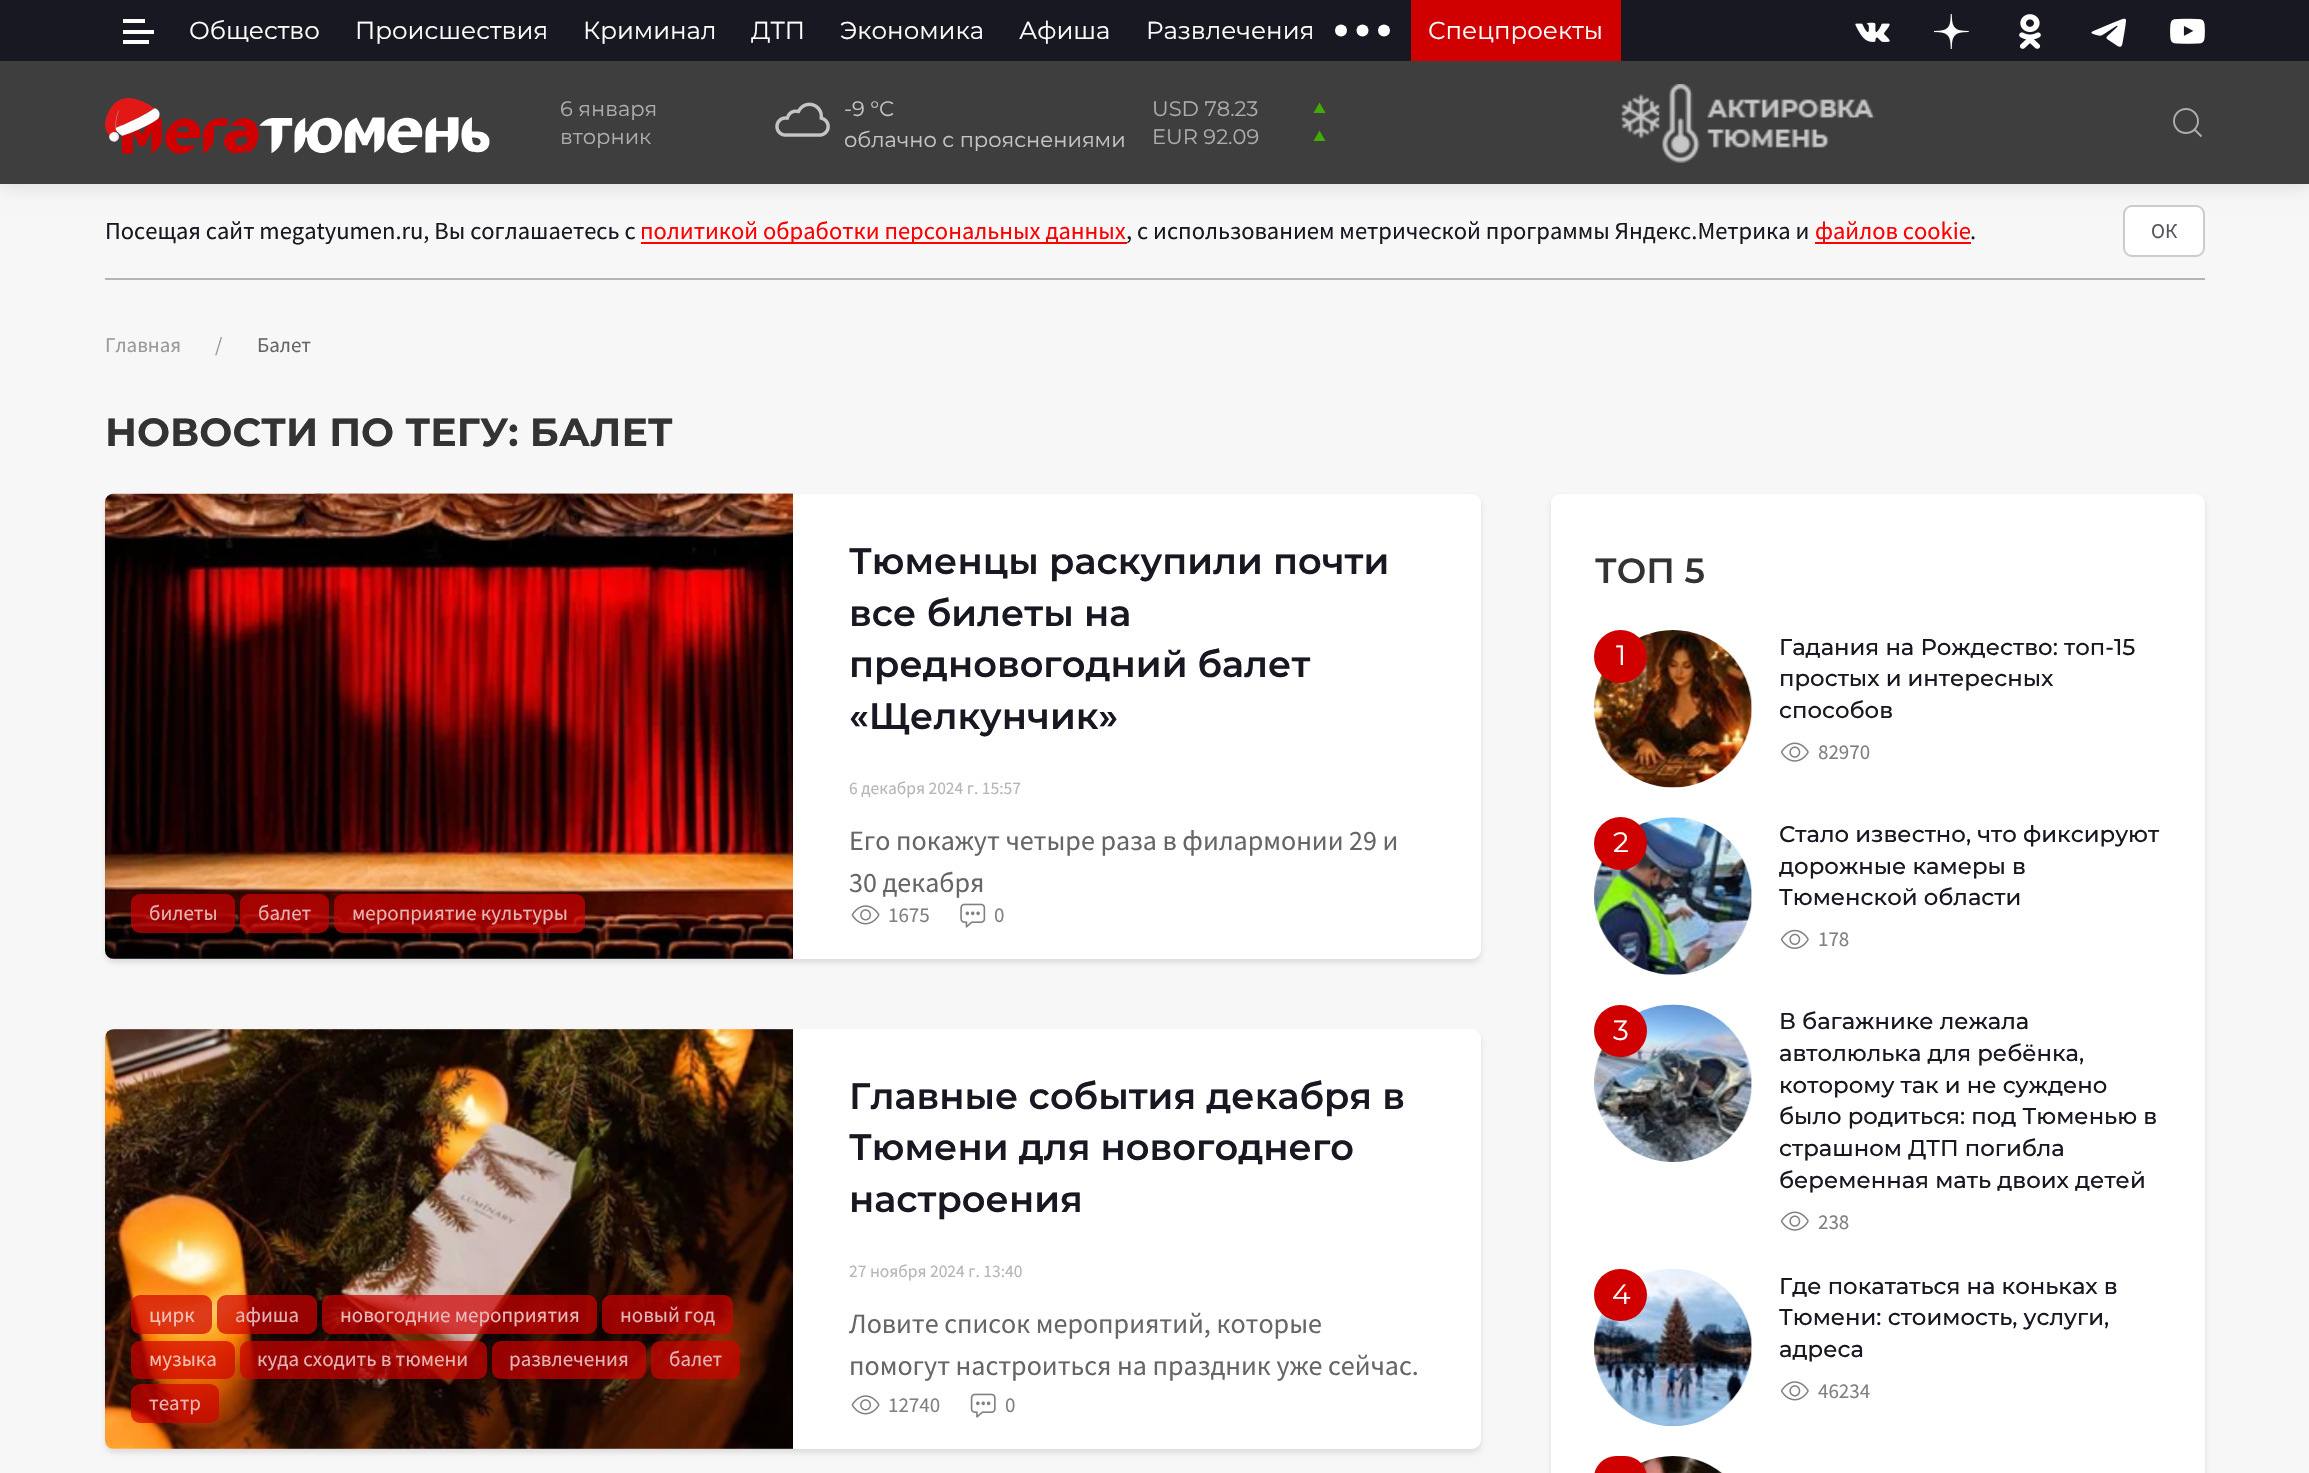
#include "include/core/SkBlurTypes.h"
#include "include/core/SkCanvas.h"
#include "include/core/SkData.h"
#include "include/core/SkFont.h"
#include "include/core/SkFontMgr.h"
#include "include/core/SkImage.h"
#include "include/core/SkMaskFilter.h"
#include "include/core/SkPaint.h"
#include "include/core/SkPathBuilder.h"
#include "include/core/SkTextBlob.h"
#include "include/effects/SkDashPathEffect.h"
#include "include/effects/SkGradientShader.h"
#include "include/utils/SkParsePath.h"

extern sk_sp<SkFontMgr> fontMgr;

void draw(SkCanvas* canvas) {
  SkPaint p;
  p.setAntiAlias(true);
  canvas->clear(SkColorSetRGB(247, 247, 247));
  p.setColor(SkColorSetARGB(26, 0, 0, 0));
  p.setMaskFilter(SkMaskFilter::MakeBlur(kNormal_SkBlurStyle, 9));
  canvas->drawRect(SkRect::MakeLTRB(0, 4, 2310, 187), p);
  p.setMaskFilter(nullptr);
  p.setColor(SkColorSetRGB(23, 24, 33));
  canvas->drawRect(SkRect::MakeLTRB(0, 0, 2309, 61), p);
  p.setColor(SK_ColorWHITE);
  canvas->drawRect(SkRect::MakeLTRB(123, 30, 154, 34), p);
  canvas->drawRect(SkRect::MakeLTRB(123, 19, 145, 23), p);
  canvas->drawRect(SkRect::MakeLTRB(123, 40, 149, 44), p);
  canvas->drawCircle(1341, 30.5f, 6, p);
  canvas->drawCircle(1362.5f, 30.5f, 6, p);
  canvas->drawCircle(1384, 30.5f, 6, p);
  p.setColor(SkColorSetRGB(208, 0, 0));
  canvas->drawRect(SkRect::MakeLTRB(1411, 0, 1621, 61), p);
  canvas->drawImageRect(SkImages::DeferredFromEncodedData(SkData::MakeFromFileName("images/1.png")), SkRect::MakeLTRB(1855, 22, 1890, 42), SkSamplingOptions());
  canvas->drawImageRect(SkImages::DeferredFromEncodedData(SkData::MakeFromFileName("images/2.png")), SkRect::MakeLTRB(1934, 14, 1969, 49), SkSamplingOptions());
  canvas->drawImageRect(SkImages::DeferredFromEncodedData(SkData::MakeFromFileName("images/3.png")), SkRect::MakeLTRB(2019, 14, 2041, 49), SkSamplingOptions());
  canvas->drawImageRect(SkImages::DeferredFromEncodedData(SkData::MakeFromFileName("images/4.png")), SkRect::MakeLTRB(2091, 18, 2126, 47), SkSamplingOptions());
  canvas->drawImageRect(SkImages::DeferredFromEncodedData(SkData::MakeFromFileName("images/5.png")), SkRect::MakeLTRB(2170, 18, 2205, 44), SkSamplingOptions());
  p.setColor(SkColorSetRGB(62, 62, 62));
  canvas->drawRect(SkRect::MakeLTRB(0, 61, 2309, 184), p);
  canvas->drawImageRect(SkImages::DeferredFromEncodedData(SkData::MakeFromFileName("images/6.png")), SkRect::MakeLTRB(105, 98, 490, 154), SkSamplingOptions());
  canvas->drawImageRect(SkImages::DeferredFromEncodedData(SkData::MakeFromFileName("images/7.png")), SkRect::MakeLTRB(775, 102, 830, 137), SkSamplingOptions());
  p.setColor(SkColorSetRGB(66, 171, 0));
  canvas->drawPath(SkPathBuilder().moveTo(1319.5f, 102.5f).lineTo(1325.5f, 113).lineTo(1313.5f, 113).close().moveTo(1319.5f, 130.5f).lineTo(1325.5f, 141).lineTo(1313.5f, 141).close().detach(), p);
  canvas->drawImageRect(SkImages::DeferredFromEncodedData(SkData::MakeFromFileName("images/8.png")), SkRect::MakeLTRB(1620, 84, 1875, 163), SkSamplingOptions());
  p.setStyle(SkPaint::kStroke_Style);
  p.setStrokeWidth(1.9f);
  p.setColor(SkColorSetRGB(173, 173, 173));
  canvas->drawCircle(2186, 121, 12, p);
  canvas->drawPath(SkPathBuilder().moveTo(2194.5f, 129.5f).lineTo(2201.5f, 136.5f).close().detach(), p);
  p.setStyle(SkPaint::kFill_Style);
  p.setColor(SkColorSetRGB(180, 180, 180));
  canvas->drawRect(SkRect::MakeLTRB(105, 278, 2205, 280), p);
  p.setColor(SkColorSetRGB(255, 0, 0));
  canvas->drawRect(SkRect::MakeLTRB(641, 242, 1127, 244), p);
  canvas->drawRect(SkRect::MakeLTRB(1815, 242, 1971, 244), p);
  p.setColor(SK_ColorWHITE);
  canvas->drawRoundRect(SkRect::MakeLTRB(2124, 206, 2204, 256), 8, 8, p);
  p.setStyle(SkPaint::kStroke_Style);
  p.setStrokeWidth(2);
  p.setColor(SkColorSetRGB(204, 204, 204));
  canvas->drawRoundRect(SkRect::MakeLTRB(2124, 206, 2204, 256), 8, 8, p);
  p.setStyle(SkPaint::kFill_Style);
  p.setColor(SkColorSetARGB(26, 0, 0, 0));
  p.setMaskFilter(SkMaskFilter::MakeBlur(kNormal_SkBlurStyle, 2.5f));
  canvas->drawRoundRect(SkRect::MakeLTRB(105, 497, 1481, 963), 9, 9, p);
  p.setMaskFilter(nullptr);
  p.setColor(SK_ColorWHITE);
  canvas->drawRoundRect(SkRect::MakeLTRB(105, 494, 1481, 959), 9, 9, p);
  canvas->drawImageRect(SkImages::DeferredFromEncodedData(SkData::MakeFromFileName("images/9.png")), SkRect::MakeLTRB(105, 493, 793, 959), SkSamplingOptions());
  p.setColor(SkColorSetARGB(179, 208, 0, 0));
  canvas->drawRoundRect(SkRect::MakeLTRB(131, 894, 235, 933), 9, 9, p);
  canvas->drawRoundRect(SkRect::MakeLTRB(240, 894, 329, 933), 9, 9, p);
  canvas->drawRoundRect(SkRect::MakeLTRB(334, 894, 585, 933), 9, 9, p);
  canvas->drawImageRect(SkImages::DeferredFromEncodedData(SkData::MakeFromFileName("images/10.png")), SkRect::MakeLTRB(851, 905, 880, 925), SkSamplingOptions());
  canvas->drawImageRect(SkImages::DeferredFromEncodedData(SkData::MakeFromFileName("images/11.png")), SkRect::MakeLTRB(960, 903, 986, 928), SkSamplingOptions());
  p.setColor(SkColorSetARGB(26, 0, 0, 0));
  p.setMaskFilter(SkMaskFilter::MakeBlur(kNormal_SkBlurStyle, 2.5f));
  canvas->drawRoundRect(SkRect::MakeLTRB(105, 1033, 1481, 1453), 9, 9, p);
  p.setMaskFilter(nullptr);
  p.setColor(SK_ColorWHITE);
  canvas->drawRoundRect(SkRect::MakeLTRB(105, 1029, 1481, 1449), 9, 9, p);
  canvas->drawImageRect(SkImages::DeferredFromEncodedData(SkData::MakeFromFileName("images/12.png")), SkRect::MakeLTRB(105, 1029, 793, 1449), SkSamplingOptions());
  p.setColor(SkColorSetARGB(179, 208, 0, 0));
  canvas->drawRoundRect(SkRect::MakeLTRB(131, 1295, 212, 1334), 9, 9, p);
  canvas->drawRoundRect(SkRect::MakeLTRB(217, 1295, 317, 1334), 9, 9, p);
  canvas->drawRoundRect(SkRect::MakeLTRB(322, 1295, 597, 1334), 9, 9, p);
  canvas->drawRoundRect(SkRect::MakeLTRB(602, 1295, 733, 1334), 9, 9, p);
  canvas->drawRoundRect(SkRect::MakeLTRB(131, 1341, 235, 1379), 9, 9, p);
  canvas->drawRoundRect(SkRect::MakeLTRB(240, 1341, 487, 1379), 9, 9, p);
  canvas->drawRoundRect(SkRect::MakeLTRB(492, 1341, 646, 1379), 9, 9, p);
  canvas->drawRoundRect(SkRect::MakeLTRB(651, 1341, 740, 1379), 9, 9, p);
  canvas->drawRoundRect(SkRect::MakeLTRB(131, 1384, 219, 1423), 9, 9, p);
  canvas->drawImageRect(SkImages::DeferredFromEncodedData(SkData::MakeFromFileName("images/10.png")), SkRect::MakeLTRB(851, 1395, 880, 1415), SkSamplingOptions());
  canvas->drawImageRect(SkImages::DeferredFromEncodedData(SkData::MakeFromFileName("images/13.png")), SkRect::MakeLTRB(970, 1393, 996, 1418), SkSamplingOptions());
  p.setColor(SkColorSetARGB(26, 0, 0, 0));
  p.setMaskFilter(SkMaskFilter::MakeBlur(kNormal_SkBlurStyle, 2.5f));
  canvas->drawRoundRect(SkRect::MakeLTRB(1551, 497, 2205, 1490), 9, 9, p);
  p.setMaskFilter(nullptr);
  p.setColor(SK_ColorWHITE);
  canvas->drawRoundRect(SkRect::MakeLTRB(1551, 494, 2205, 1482), 9, 9, p);
  canvas->drawImageRect(SkImages::DeferredFromEncodedData(SkData::MakeFromFileName("images/14.png")), SkRect::MakeLTRB(1594, 630, 1752, 788), SkSamplingOptions());
  p.setColor(SkColorSetRGB(208, 0, 0));
  canvas->drawCircle(1620.5f, 656.5f, 26.5f, p);
  canvas->drawImageRect(SkImages::DeferredFromEncodedData(SkData::MakeFromFileName("images/15.png")), SkRect::MakeLTRB(1780, 742, 1809, 762), SkSamplingOptions());
  canvas->drawImageRect(SkImages::DeferredFromEncodedData(SkData::MakeFromFileName("images/16.png")), SkRect::MakeLTRB(1594, 817, 1752, 975), SkSamplingOptions());
  canvas->drawCircle(1620.5f, 843.5f, 26.5f, p);
  canvas->drawImageRect(SkImages::DeferredFromEncodedData(SkData::MakeFromFileName("images/17.png")), SkRect::MakeLTRB(1780, 929, 1809, 949), SkSamplingOptions());
  canvas->drawImageRect(SkImages::DeferredFromEncodedData(SkData::MakeFromFileName("images/18.png")), SkRect::MakeLTRB(1594, 1004, 1752, 1162), SkSamplingOptions());
  canvas->drawRoundRect(SkRect::MakeLTRB(1594, 1005, 1647, 1057), 26, 26, p);
  canvas->drawImageRect(SkImages::DeferredFromEncodedData(SkData::MakeFromFileName("images/15.png")), SkRect::MakeLTRB(1780, 1211, 1809, 1231), SkSamplingOptions());
  canvas->drawImageRect(SkImages::DeferredFromEncodedData(SkData::MakeFromFileName("images/19.png")), SkRect::MakeLTRB(1594, 1269, 1752, 1427), SkSamplingOptions());
  canvas->drawRoundRect(SkRect::MakeLTRB(1594, 1269, 1647, 1321), 26, 26, p);
  canvas->drawImageRect(SkImages::DeferredFromEncodedData(SkData::MakeFromFileName("images/20.png")), SkRect::MakeLTRB(1781, 1381, 1809, 1401), SkSamplingOptions());
  canvas->drawImageRect(SkImages::DeferredFromEncodedData(SkData::MakeFromFileName("images/21.png")), SkRect::MakeLTRB(1638, 1456, 1723, 1473), SkSamplingOptions());
  canvas->drawRoundRect(SkRect::MakeLTRB(1594, 1456, 1647, 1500), 26.5f, 26.5f, p);
  SkFont font1(fontMgr->matchFamilyStyle("Montserrat", SkFontStyle::Normal()), 24.5f);
  font1.setSubpixel(true);
  p.setColor(SK_ColorWHITE);
  canvas->drawString("Общество", 189, 39, font1, p);
  canvas->drawString("Происшествия", 355, 39, font1, p);
  canvas->drawString("Криминал", 583, 39, font1, p);
  canvas->drawString("ДТП", 751, 39, font1, p);
  canvas->drawString("Экономика", 840, 39, font1, p);
  canvas->drawString("Афиша", 1019, 39, font1, p);
  canvas->drawString("Развлечения", 1146, 39, font1, p);
  canvas->drawString("Спецпроекты", 1428, 39, font1, p);
  SkFont font2(fontMgr->matchFamilyStyle("Montserrat", SkFontStyle::Normal()), 21);
  font2.setSubpixel(true);
  p.setColor(SkColorSetRGB(173, 173, 173));
  canvas->drawString("6 января", 560, 116, font2, p);
  canvas->drawString("вторник", 560, 144, font2, p);
  p.setColor(SkColorSetRGB(197, 197, 197));
  canvas->drawString("-9 °С", 844, 116, font2, p);
  canvas->drawString("облачно с прояснениями", 844, 147, font2, p);
  p.setColor(SkColorSetRGB(173, 173, 173));
  canvas->drawString("USD 78.23", 1152, 116, font2, p);
  canvas->drawString("EUR 92.09", 1152, 144, font2, p);
  SkFont font3(fontMgr->matchFamilyStyle("Source Sans Pro", SkFontStyle::Normal()), 24.5f);
  font3.setSubpixel(true);
  p.setColor(SkColorSetRGB(23, 24, 33));
  canvas->drawString("Посещая сайт megatyumen.ru, Вы соглашаетесь с", 105, 239, font3, p);
  p.setColor(SkColorSetRGB(255, 0, 0));
  canvas->drawString("политикой обработки персональных данных", 640, 239, font3, p);
  p.setColor(SkColorSetRGB(23, 24, 33));
  canvas->drawString(", с использованием метрической программы Яндекс.Метрика и", 1126, 239, font3, p);
  p.setColor(SkColorSetRGB(255, 0, 0));
  canvas->drawString("файлов cookie", 1815, 239, font3, p);
  p.setColor(SkColorSetRGB(23, 24, 33));
  canvas->drawString(".", 1970, 239, font3, p);
  SkFont font4(fontMgr->matchFamilyStyle("Source Sans Pro", SkFontStyle::Normal()), 21);
  font4.setSubpixel(true);
  p.setColor(SkColorSetRGB(84, 85, 94));
  canvas->drawString("ОК", 2151, 238, font4, p);
  p.setColor(SkColorSetRGB(153, 153, 153));
  canvas->drawString("Главная", 105, 352, font4, p);
  canvas->drawString("/", 215, 352, font4, p);
  p.setColor(SkColorSetRGB(102, 102, 102));
  canvas->drawString("Балет", 257, 352, font4, p);
  SkFont font5(fontMgr->matchFamilyStyle("Montserrat", SkFontStyle::Bold()), 39.25f);
  font5.setSubpixel(true);
  p.setColor(SkColorSetRGB(51, 51, 51));
  canvas->drawString("НОВОСТИ ПО ТЕГУ: БАЛЕТ", 105, 446, font5, p);
  p.setColor(SkColorSetRGB(227, 180, 179));
  canvas->drawString("билеты", 149, 920, font4, p);
  canvas->drawString("балет", 258, 920, font4, p);
  canvas->drawString("мероприятие культуры", 352, 920, font4, p);
  SkFont font6(fontMgr->matchFamilyStyle("Montserrat", SkFontStyle(600, SkFontStyle::kNormal_Width, SkFontStyle::kUpright_Slant)), 36.75f);
  font6.setSubpixel(true);
  p.setColor(SkColorSetRGB(23, 24, 33));
  canvas->drawString("Тюменцы раскупили почти", 849, 574, font6, p);
  canvas->drawString("все билеты на", 849, 626, font6, p);
  canvas->drawString("предновогодний балет", 849, 677, font6, p);
  canvas->drawString("«Щелкунчик»", 849, 729, font6, p);
  SkFont font7(fontMgr->matchFamilyStyle("Source Sans Pro", SkFontStyle::Normal()), 17.5f);
  font7.setSubpixel(true);
  p.setColor(SkColorSetRGB(182, 182, 182));
  canvas->drawString("6 декабря 2024 г. 15:57", 849, 794, font7, p);
  SkFont font8(fontMgr->matchFamilyStyle("Source Sans Pro", SkFontStyle::Normal()), 28);
  font8.setSubpixel(true);
  p.setColor(SkColorSetRGB(102, 102, 102));
  canvas->drawString("Его покажут четыре раза в филармонии 29 и", 849, 850, font8, p);
  canvas->drawString("30 декабря", 849, 892, font8, p);
  p.setColor(SkColorSetRGB(128, 128, 128));
  canvas->drawString("1675", 888, 922, font4, p);
  canvas->drawString("0", 994, 922, font4, p);
  p.setColor(SkColorSetRGB(245, 195, 184));
  canvas->drawString("цирк", 149, 1322, font4, p);
  p.setColor(SkColorSetRGB(227, 180, 179));
  canvas->drawString("афиша", 235, 1322, font4, p);
  p.setColor(SkColorSetRGB(232, 186, 185));
  canvas->drawString("новогодние мероприятия", 340, 1322, font4, p);
  p.setColor(SkColorSetRGB(227, 180, 179));
  canvas->drawString("новый год", 620, 1322, font4, p);
  p.setColor(SkColorSetRGB(243, 189, 179));
  canvas->drawString("музыка", 149, 1366, font4, p);
  p.setColor(SkColorSetRGB(227, 180, 179));
  canvas->drawString("куда сходить в тюмени", 257, 1366, font4, p);
  canvas->drawString("развлечения", 509, 1366, font4, p);
  canvas->drawString("балет", 669, 1366, font4, p);
  p.setColor(SkColorSetRGB(235, 183, 179));
  canvas->drawString("театр", 149, 1410, font4, p);
  p.setColor(SkColorSetRGB(23, 24, 33));
  canvas->drawString("Главные события декабря в", 849, 1109, font6, p);
  canvas->drawString("Тюмени для новогоднего", 849, 1160, font6, p);
  canvas->drawString("настроения", 849, 1212, font6, p);
  p.setColor(SkColorSetRGB(182, 182, 182));
  canvas->drawString("27 ноября 2024 г. 13:40", 849, 1277, font7, p);
  p.setColor(SkColorSetRGB(102, 102, 102));
  canvas->drawString("Ловите список мероприятий, которые", 849, 1333, font8, p);
  canvas->drawString("помогут настроиться на праздник уже сейчас.", 849, 1375, font8, p);
  p.setColor(SkColorSetRGB(128, 128, 128));
  canvas->drawString("12740", 888, 1412, font4, p);
  canvas->drawString("0", 1005, 1412, font4, p);
  SkFont font9(fontMgr->matchFamilyStyle("Montserrat", SkFontStyle(600, SkFontStyle::kNormal_Width, SkFontStyle::kUpright_Slant)), 35);
  font9.setSubpixel(true);
  p.setColor(SkColorSetRGB(51, 51, 51));
  canvas->drawString("ТОП 5", 1595, 583, font9, p);
  SkFont font10(fontMgr->matchFamilyStyle("Montserrat", SkFontStyle::Normal()), 28);
  font10.setSubpixel(true);
  p.setColor(SK_ColorWHITE);
  canvas->drawString("1", 1616, 665, font10, p);
  SkFont font11(fontMgr->matchFamilyStyle("Montserrat", SkFontStyle(500, SkFontStyle::kNormal_Width, SkFontStyle::kUpright_Slant)), 22.75f);
  font11.setSubpixel(true);
  p.setColor(SkColorSetRGB(23, 24, 33));
  canvas->drawString("Гадания на Рождество: топ-15", 1779, 655, font11, p);
  canvas->drawString("простых и интересных", 1779, 686, font11, p);
  canvas->drawString("способов", 1779, 718, font11, p);
  p.setColor(SkColorSetRGB(128, 128, 128));
  canvas->drawString("82970", 1818, 759, font4, p);
  p.setColor(SK_ColorWHITE);
  canvas->drawString("2", 1613, 852, font10, p);
  p.setColor(SkColorSetRGB(23, 24, 33));
  canvas->drawString("Стало известно, что фиксируют", 1779, 842, font11, p);
  canvas->drawString("дорожные камеры в", 1779, 874, font11, p);
  canvas->drawString("Тюменской области", 1779, 905, font11, p);
  p.setColor(SkColorSetRGB(128, 128, 128));
  canvas->drawString("178", 1818, 946, font4, p);
  p.setColor(SK_ColorWHITE);
  canvas->drawString("3", 1613, 1040, font10, p);
  p.setColor(SkColorSetRGB(23, 24, 33));
  canvas->drawString("В багажнике лежала", 1779, 1029, font11, p);
  canvas->drawString("автолюлька для ребёнка,", 1779, 1061, font11, p);
  canvas->drawString("которому так и не суждено", 1779, 1093, font11, p);
  canvas->drawString("было родиться: под Тюменью в", 1779, 1124, font11, p);
  canvas->drawString("страшном ДТП погибла", 1779, 1156, font11, p);
  canvas->drawString("беременная мать двоих детей", 1779, 1188, font11, p);
  p.setColor(SkColorSetRGB(128, 128, 128));
  canvas->drawString("238", 1818, 1229, font4, p);
  p.setColor(SK_ColorWHITE);
  canvas->drawString("4", 1612, 1304, font10, p);
  p.setColor(SkColorSetRGB(23, 24, 33));
  canvas->drawString("Где покататься на коньках в", 1779, 1294, font11, p);
  canvas->drawString("Тюмени: стоимость, услуги,", 1779, 1325, font11, p);
  canvas->drawString("адреса", 1779, 1357, font11, p);
  p.setColor(SkColorSetRGB(128, 128, 128));
  canvas->drawString("46234", 1818, 1398, font4, p);
}
